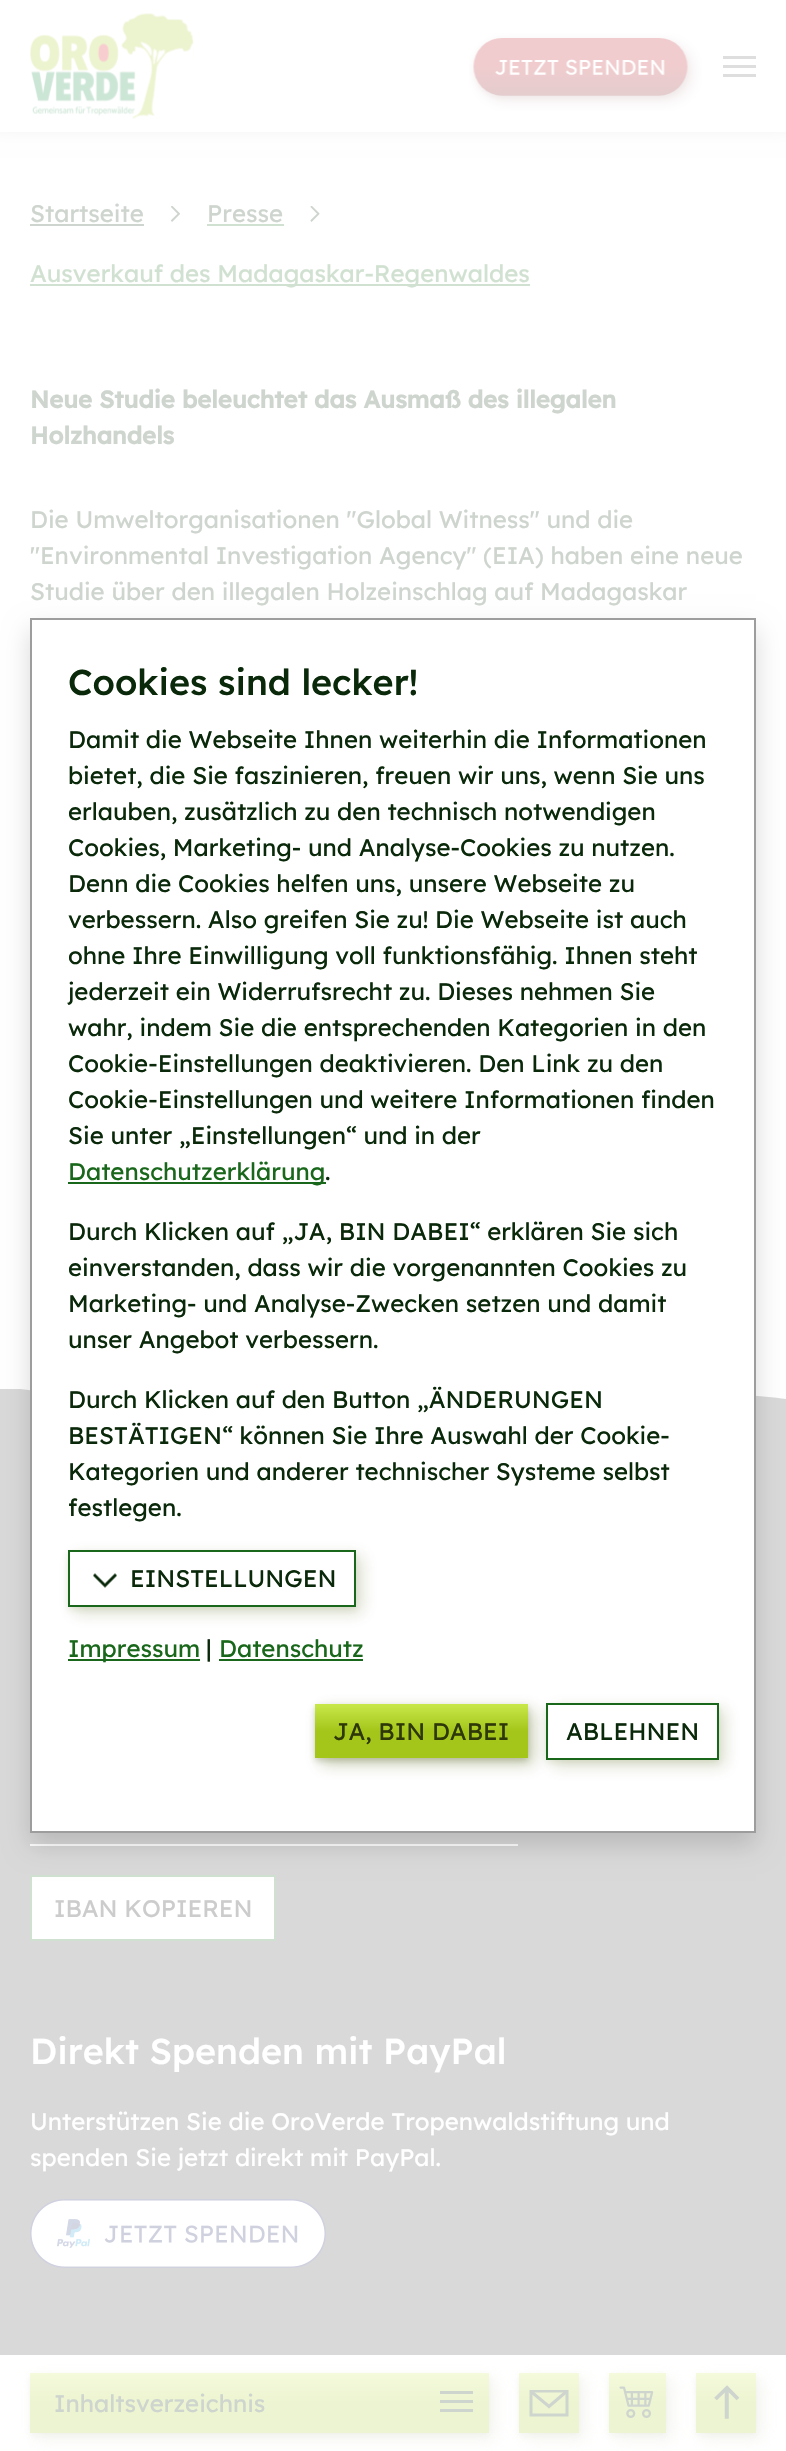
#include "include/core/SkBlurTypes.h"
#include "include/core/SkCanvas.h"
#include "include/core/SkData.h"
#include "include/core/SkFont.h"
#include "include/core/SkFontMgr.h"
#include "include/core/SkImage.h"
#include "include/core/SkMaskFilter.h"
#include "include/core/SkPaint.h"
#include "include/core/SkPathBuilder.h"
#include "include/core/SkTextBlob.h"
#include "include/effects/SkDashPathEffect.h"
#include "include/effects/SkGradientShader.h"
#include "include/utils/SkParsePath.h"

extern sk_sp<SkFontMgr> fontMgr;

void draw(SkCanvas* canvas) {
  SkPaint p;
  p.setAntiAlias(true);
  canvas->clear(SK_ColorWHITE);
  p.setColor(SkColorSetRGB(204, 204, 204));
  p.setMaskFilter(SkMaskFilter::MakeBlur(kNormal_SkBlurStyle, 15));
  canvas->drawRect(SkRect::MakeLTRB(-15, -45, 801, 113), p);
  p.setMaskFilter(nullptr);
  p.setColor(SK_ColorWHITE);
  canvas->drawRect(SkRect::MakeLTRB(0, 0, 786, 132), p);
  canvas->drawImageRect(SkImages::DeferredFromEncodedData(SkData::MakeFromFileName("images/1.png")), SkRect::MakeLTRB(30, 13, 194, 119), SkSamplingOptions());
  canvas->drawImageRect(SkImages::DeferredFromEncodedData(SkData::MakeFromFileName("images/2.png")), SkRect::MakeLTRB(469, 33, 702, 111), SkSamplingOptions());
  p.setColor(SkColorSetRGB(222, 222, 222));
  canvas->drawRect(SkRect::MakeLTRB(723, 65, 756, 68), p);
  canvas->drawRect(SkRect::MakeLTRB(723, 56, 756, 59), p);
  canvas->drawRect(SkRect::MakeLTRB(723, 74, 756, 77), p);
  p.setColor(SkColorSetRGB(206, 212, 206));
  canvas->drawRect(SkRect::MakeLTRB(30, 224, 144, 226), p);
  canvas->drawImageRect(SkImages::DeferredFromEncodedData(SkData::MakeFromFileName("images/3.png")), SkRect::MakeLTRB(170, 206, 181, 222), SkSamplingOptions());
  p.setColor(SkColorSetRGB(209, 225, 209));
  canvas->drawRect(SkRect::MakeLTRB(207, 224, 284, 226), p);
  canvas->drawImageRect(SkImages::DeferredFromEncodedData(SkData::MakeFromFileName("images/4.png")), SkRect::MakeLTRB(310, 206, 320, 222), SkSamplingOptions());
  canvas->drawRect(SkRect::MakeLTRB(30, 284, 530, 286), p);
  p.setColor(SkColorSetRGB(217, 217, 217));
  canvas->drawPath(SkPathBuilder(SkPathFillType::kEvenOdd).moveTo(0, 1389).lineTo(0, 1485).lineTo(786, 1485).lineTo(786, 1399).cubicTo(740, 1393, 651, 1387, 593, 1403).cubicTo(509, 1426, 431, 1417, 408, 1403).cubicTo(371, 1381, 322, 1398, 277, 1401).cubicTo(262, 1402, 249, 1403, 243, 1403).lineTo(127, 1403).cubicTo(98, 1403, 63, 1396, 40, 1392).cubicTo(30, 1390, 22, 1389, 19, 1389).close().detach(), p);
  canvas->drawRect(SkRect::MakeLTRB(0, 1485, 786, 2355), p);
  p.setColor(SK_ColorWHITE);
  canvas->drawRect(SkRect::MakeLTRB(30, 1844, 518, 1846), p);
  canvas->drawRect(SkRect::MakeLTRB(31, 1876, 275, 1940), p);
  p.setStyle(SkPaint::kStroke_Style);
  p.setStrokeWidth(2);
  p.setColor(SkColorSetRGB(209, 225, 209));
  canvas->drawRect(SkRect::MakeLTRB(31, 1876, 275, 1940), p);
  canvas->drawImageRect(SkImages::DeferredFromEncodedData(SkData::MakeFromFileName("images/5.png")), SkRect::MakeLTRB(30, 2199, 326, 2268), SkSamplingOptions());
  p.setStyle(SkPaint::kFill_Style);
  p.setColor(SkColorSetARGB(51, 213, 215, 205));
  p.setMaskFilter(SkMaskFilter::MakeBlur(kNormal_SkBlurStyle, 3));
  canvas->drawRect(SkRect::MakeLTRB(30, 2376, 489, 2436), p);
  p.setMaskFilter(nullptr);
  p.setColor(SkColorSetARGB(77, 219, 223, 206));
  p.setMaskFilter(SkMaskFilter::MakeBlur(kNormal_SkBlurStyle, 7.5f));
  canvas->drawRect(SkRect::MakeLTRB(36, 2379, 495, 2439), p);
  p.setMaskFilter(nullptr);
  {
    const SkColor colors[] = {SkColorSetRGB(237, 244, 209), SkColorSetRGB(244, 250, 219)};
    const float stops[] = {0.5f, 1};
    const SkPoint ends[] = {{260, 2433}, {260, 2373}};
    p.setShader(SkGradientShader::MakeLinear(ends, colors, stops, 2, SkTileMode::kClamp));
    p.setAlpha(255);
  }
  canvas->drawRect(SkRect::MakeLTRB(30, 2373, 489, 2433), p);
  p.setShader(nullptr);
  p.setColor(SkColorSetRGB(206, 212, 206));
  canvas->drawRect(SkRect::MakeLTRB(440, 2400, 473, 2403), p);
  canvas->drawRect(SkRect::MakeLTRB(440, 2391, 473, 2394), p);
  canvas->drawRect(SkRect::MakeLTRB(440, 2409, 473, 2412), p);
  p.setColor(SkColorSetARGB(51, 213, 215, 205));
  p.setMaskFilter(SkMaskFilter::MakeBlur(kNormal_SkBlurStyle, 3));
  canvas->drawRect(SkRect::MakeLTRB(519, 2376, 579, 2436), p);
  p.setMaskFilter(nullptr);
  p.setColor(SkColorSetARGB(77, 219, 223, 206));
  p.setMaskFilter(SkMaskFilter::MakeBlur(kNormal_SkBlurStyle, 7.5f));
  canvas->drawRect(SkRect::MakeLTRB(525, 2379, 585, 2439), p);
  p.setMaskFilter(nullptr);
  {
    const SkColor colors[] = {SkColorSetRGB(237, 244, 209), SkColorSetRGB(244, 250, 219)};
    const float stops[] = {0.5f, 1};
    const SkPoint ends[] = {{549, 2433}, {549, 2373}};
    p.setShader(SkGradientShader::MakeLinear(ends, colors, stops, 2, SkTileMode::kClamp));
    p.setAlpha(255);
  }
  canvas->drawRect(SkRect::MakeLTRB(519, 2373, 579, 2433), p);
  canvas->save();
  canvas->clipRect(SkRect::MakeLTRB(519, 2390, 579, 2417));
  p.setStyle(SkPaint::kStroke_Style);
  p.setStrokeWidth(3);
  p.setShader(nullptr);
  p.setColor(SkColorSetRGB(206, 212, 206));
  canvas->drawPath(SkPathBuilder().moveTo(567, 2391).lineTo(567, 2415).lineTo(531, 2415).lineTo(531, 2391).close().detach(), p);
  canvas->restore();
  canvas->drawPath(SkPathBuilder().moveTo(531, 2391.5f).lineTo(549, 2406.5f).lineTo(566.5f, 2391.5f).detach(), p);
  p.setStyle(SkPaint::kFill_Style);
  p.setColor(SkColorSetARGB(51, 213, 215, 205));
  p.setMaskFilter(SkMaskFilter::MakeBlur(kNormal_SkBlurStyle, 3));
  canvas->drawRect(SkRect::MakeLTRB(609, 2376, 666, 2436), p);
  p.setMaskFilter(nullptr);
  p.setColor(SkColorSetARGB(77, 219, 223, 206));
  p.setMaskFilter(SkMaskFilter::MakeBlur(kNormal_SkBlurStyle, 7.5f));
  canvas->drawRect(SkRect::MakeLTRB(615, 2379, 672, 2439), p);
  p.setMaskFilter(nullptr);
  {
    const SkColor colors[] = {SkColorSetRGB(237, 244, 209), SkColorSetRGB(244, 250, 219)};
    const float stops[] = {0.5f, 1};
    const SkPoint ends[] = {{638, 2433}, {638, 2373}};
    p.setShader(SkGradientShader::MakeLinear(ends, colors, stops, 2, SkTileMode::kClamp));
    p.setAlpha(255);
  }
  canvas->drawRect(SkRect::MakeLTRB(609, 2373, 666, 2433), p);
  canvas->drawImageRect(SkImages::DeferredFromEncodedData(SkData::MakeFromFileName("images/6.png")), SkRect::MakeLTRB(619, 2386, 654, 2418), SkSamplingOptions());
  p.setShader(nullptr);
  p.setColor(SkColorSetARGB(51, 213, 215, 205));
  p.setMaskFilter(SkMaskFilter::MakeBlur(kNormal_SkBlurStyle, 3));
  canvas->drawRect(SkRect::MakeLTRB(696, 2376, 756, 2436), p);
  p.setMaskFilter(nullptr);
  p.setColor(SkColorSetARGB(77, 219, 223, 206));
  p.setMaskFilter(SkMaskFilter::MakeBlur(kNormal_SkBlurStyle, 7.5f));
  canvas->drawRect(SkRect::MakeLTRB(702, 2379, 762, 2439), p);
  p.setMaskFilter(nullptr);
  {
    const SkColor colors[] = {SkColorSetRGB(237, 244, 209), SkColorSetRGB(244, 250, 219)};
    const float stops[] = {0.5f, 1};
    const SkPoint ends[] = {{726, 2433}, {726, 2373}};
    p.setShader(SkGradientShader::MakeLinear(ends, colors, stops, 2, SkTileMode::kClamp));
    p.setAlpha(255);
  }
  canvas->drawRect(SkRect::MakeLTRB(696, 2373, 756, 2433), p);
  p.setShader(nullptr);
  p.setColor(SkColorSetRGB(206, 212, 206));
  canvas->drawRect(SkRect::MakeLTRB(726, 2389, 728, 2418), p);
  p.setStyle(SkPaint::kStroke_Style);
  p.setStrokeWidth(1.5f);
  canvas->drawPath(SkPathBuilder().moveTo(725.5f, 2388.5f).lineTo(725.5f, 2418).lineTo(728, 2418).lineTo(728, 2388.5f).close().detach(), p);
  p.setStrokeWidth(3.8f);
  canvas->drawPath(SkPathBuilder().moveTo(738, 2399).lineTo(727, 2388).lineTo(715.5f, 2399).detach(), p);
  p.setStyle(SkPaint::kFill_Style);
  p.setColor(SkColorSetARGB(38, 0, 0, 0));
  p.setMaskFilter(SkMaskFilter::MakeBlur(kNormal_SkBlurStyle, 12));
  canvas->drawRect(SkRect::MakeLTRB(30, 630, 756, 1845), p);
  p.setMaskFilter(nullptr);
  p.setColor(SK_ColorWHITE);
  canvas->drawRect(SkRect::MakeLTRB(31, 619, 755, 1832), p);
  p.setStyle(SkPaint::kStroke_Style);
  p.setStrokeWidth(2);
  p.setColor(SkColorSetRGB(157, 157, 157));
  canvas->drawRect(SkRect::MakeLTRB(31, 619, 755, 1832), p);
  p.setStyle(SkPaint::kFill_Style);
  p.setColor(SkColorSetRGB(25, 103, 26));
  canvas->drawRect(SkRect::MakeLTRB(68, 1182, 326, 1184), p);
  p.setColor(SkColorSetARGB(26, 75, 96, 8));
  p.setMaskFilter(SkMaskFilter::MakeBlur(kNormal_SkBlurStyle, 3));
  canvas->drawRect(SkRect::MakeLTRB(68, 1553, 356, 1610), p);
  p.setMaskFilter(nullptr);
  p.setColor(SkColorSetARGB(51, 75, 96, 8));
  p.setMaskFilter(SkMaskFilter::MakeBlur(kNormal_SkBlurStyle, 7.5f));
  canvas->drawRect(SkRect::MakeLTRB(74, 1556, 362, 1613), p);
  p.setMaskFilter(nullptr);
  p.setColor(SK_ColorWHITE);
  canvas->drawRect(SkRect::MakeLTRB(69, 1551, 355, 1606), p);
  p.setStyle(SkPaint::kStroke_Style);
  p.setColor(SkColorSetRGB(25, 103, 26));
  canvas->drawRect(SkRect::MakeLTRB(69, 1551, 355, 1606), p);
  canvas->drawImageRect(SkImages::DeferredFromEncodedData(SkData::MakeFromFileName("images/7.png")), SkRect::MakeLTRB(93, 1573, 117, 1588), SkSamplingOptions());
  p.setStyle(SkPaint::kFill_Style);
  canvas->drawRect(SkRect::MakeLTRB(68, 1659, 200, 1661), p);
  canvas->drawRect(SkRect::MakeLTRB(219, 1659, 363, 1661), p);
  p.setColor(SkColorSetARGB(51, 46, 56, 7));
  p.setMaskFilter(SkMaskFilter::MakeBlur(kNormal_SkBlurStyle, 3));
  canvas->drawRect(SkRect::MakeLTRB(315, 1707, 528, 1761), p);
  p.setMaskFilter(nullptr);
  p.setColor(SkColorSetARGB(77, 75, 96, 8));
  p.setMaskFilter(SkMaskFilter::MakeBlur(kNormal_SkBlurStyle, 7.5f));
  canvas->drawRect(SkRect::MakeLTRB(321, 1710, 534, 1764), p);
  p.setMaskFilter(nullptr);
  {
    const SkColor colors[] = {SkColorSetRGB(164, 198, 26), SkColorSetRGB(200, 232, 74)};
    const float stops[] = {0.5f, 1};
    const SkPoint ends[] = {{422, 1758}, {422, 1704}};
    p.setShader(SkGradientShader::MakeLinear(ends, colors, stops, 2, SkTileMode::kClamp));
    p.setAlpha(255);
  }
  canvas->drawRect(SkRect::MakeLTRB(315, 1704, 528, 1758), p);
  p.setShader(nullptr);
  p.setColor(SkColorSetARGB(26, 75, 96, 8));
  p.setMaskFilter(SkMaskFilter::MakeBlur(kNormal_SkBlurStyle, 3));
  canvas->drawRect(SkRect::MakeLTRB(546, 1706, 719, 1763), p);
  p.setMaskFilter(nullptr);
  p.setColor(SkColorSetARGB(51, 75, 96, 8));
  p.setMaskFilter(SkMaskFilter::MakeBlur(kNormal_SkBlurStyle, 7.5f));
  canvas->drawRect(SkRect::MakeLTRB(552, 1709, 725, 1766), p);
  p.setMaskFilter(nullptr);
  p.setColor(SK_ColorWHITE);
  canvas->drawRect(SkRect::MakeLTRB(547, 1704, 718, 1759), p);
  p.setStyle(SkPaint::kStroke_Style);
  p.setColor(SkColorSetRGB(25, 103, 26));
  canvas->drawRect(SkRect::MakeLTRB(547, 1704, 718, 1759), p);
  SkFont font1(fontMgr->matchFamilyStyle("Lexend", SkFontStyle::Normal()), 24);
  font1.setSubpixel(true);
  p.setStyle(SkPaint::kFill_Style);
  p.setColor(SkColorSetRGB(206, 212, 206));
  canvas->drawString("Startseite", 30, 222, font1, p);
  canvas->drawString("Presse", 207, 222, font1, p);
  p.setColor(SkColorSetRGB(209, 225, 209));
  canvas->drawString("Ausverkauf des Madagaskar-Regenwaldes", 30, 282, font1, p);
  SkFont font2(fontMgr->matchFamilyStyle("Lexend", SkFontStyle::Bold()), 24);
  font2.setSubpixel(true);
  p.setColor(SkColorSetRGB(206, 212, 206));
  canvas->drawString("Neue Studie beleuchtet das Ausmaß des illegalen", 30, 408, font2, p);
  canvas->drawString("Holzhandels", 30, 444, font2, p);
  canvas->drawString("Die Umweltorganisationen \"Global Witness\" und die", 30, 528, font1, p);
  canvas->drawString("\"Environmental Investigation Agency\" (EIA) haben eine neue", 30, 564, font1, p);
  canvas->drawString("Studie über den illegalen Holzeinschlag auf Madagaskar", 30, 600, font1, p);
  p.setColor(SkColorSetRGB(204, 204, 204));
  canvas->drawString("IBAN KOPIEREN", 54, 1917, font1, p);
  SkFont font3(fontMgr->matchFamilyStyle("Lexend", SkFontStyle(500, SkFontStyle::kNormal_Width, SkFontStyle::kUpright_Slant)), 35.9f);
  font3.setSubpixel(true);
  p.setColor(SK_ColorWHITE);
  canvas->drawString("Direkt Spenden mit PayPal", 30, 2064, font3, p);
  canvas->drawString("Unterstützen Sie die OroVerde Tropenwaldstiftung und", 30, 2130, font1, p);
  canvas->drawString("spenden Sie jetzt direkt mit PayPal.", 30, 2166, font1, p);
  p.setColor(SkColorSetRGB(206, 212, 206));
  canvas->drawString("Inhaltsverzeichnis", 54, 2412, font1, p);
  p.setColor(SkColorSetRGB(10, 41, 10));
  canvas->drawString("Cookies sind lecker!", 68, 695, font3, p);
  canvas->drawString("Damit die Webseite Ihnen weiterhin die Informationen", 68, 748, font1, p);
  canvas->drawString("bietet, die Sie faszinieren, freuen wir uns, wenn Sie uns", 68, 784, font1, p);
  canvas->drawString("erlauben, zusätzlich zu den technisch notwendigen", 68, 820, font1, p);
  canvas->drawString("Cookies, Marketing- und Analyse-Cookies zu nutzen.", 68, 856, font1, p);
  canvas->drawString("Denn die Cookies helfen uns, unsere Webseite zu", 68, 892, font1, p);
  canvas->drawString("verbessern. Also greifen Sie zu! Die Webseite ist auch", 68, 928, font1, p);
  canvas->drawString("ohne Ihre Einwilligung voll funktionsfähig. Ihnen steht", 68, 964, font1, p);
  canvas->drawString("jederzeit ein Widerrufsrecht zu. Dieses nehmen Sie", 68, 1000, font1, p);
  canvas->drawString("wahr, indem Sie die entsprechenden Kategorien in den", 68, 1036, font1, p);
  canvas->drawString("Cookie-Einstellungen deaktivieren. Den Link zu den", 68, 1072, font1, p);
  canvas->drawString("Cookie-Einstellungen und weitere Informationen finden", 68, 1108, font1, p);
  canvas->drawString("Sie unter „Einstellungen“ und in der", 68, 1144, font1, p);
  p.setColor(SkColorSetRGB(25, 103, 26));
  canvas->drawString("Datenschutzerklärung", 68, 1180, font1, p);
  p.setColor(SkColorSetRGB(10, 41, 10));
  canvas->drawString(".", 325, 1180, font1, p);
  canvas->drawString("Durch Klicken auf „JA, BIN DABEI“ erklären Sie sich", 68, 1240, font1, p);
  canvas->drawString("einverstanden, dass wir die vorgenannten Cookies zu", 68, 1276, font1, p);
  canvas->drawString("Marketing- und Analyse-Zwecken setzen und damit", 68, 1312, font1, p);
  canvas->drawString("unser Angebot verbessern.", 68, 1348, font1, p);
  canvas->drawString("Durch Klicken auf den Button „ÄNDERUNGEN", 68, 1408, font1, p);
  canvas->drawString("BESTÄTIGEN“ können Sie Ihre Auswahl der Cookie-", 68, 1444, font1, p);
  canvas->drawString("Kategorien und anderer technischer Systeme selbst", 68, 1480, font1, p);
  canvas->drawString("festlegen.", 68, 1516, font1, p);
  canvas->drawString("EINSTELLUNGEN", 130, 1587, font1, p);
  p.setColor(SkColorSetRGB(25, 103, 26));
  canvas->drawString("Impressum", 68, 1657, font1, p);
  p.setColor(SkColorSetRGB(10, 41, 10));
  canvas->drawString("|", 206, 1657, font1, p);
  p.setColor(SkColorSetRGB(25, 103, 26));
  canvas->drawString("Datenschutz", 219, 1657, font1, p);
  p.setColor(SkColorSetRGB(46, 56, 7));
  canvas->drawString("JA, BIN DABEI", 333, 1740, font1, p);
  p.setColor(SkColorSetRGB(10, 41, 10));
  canvas->drawString("ABLEHNEN", 566, 1740, font1, p);
}
